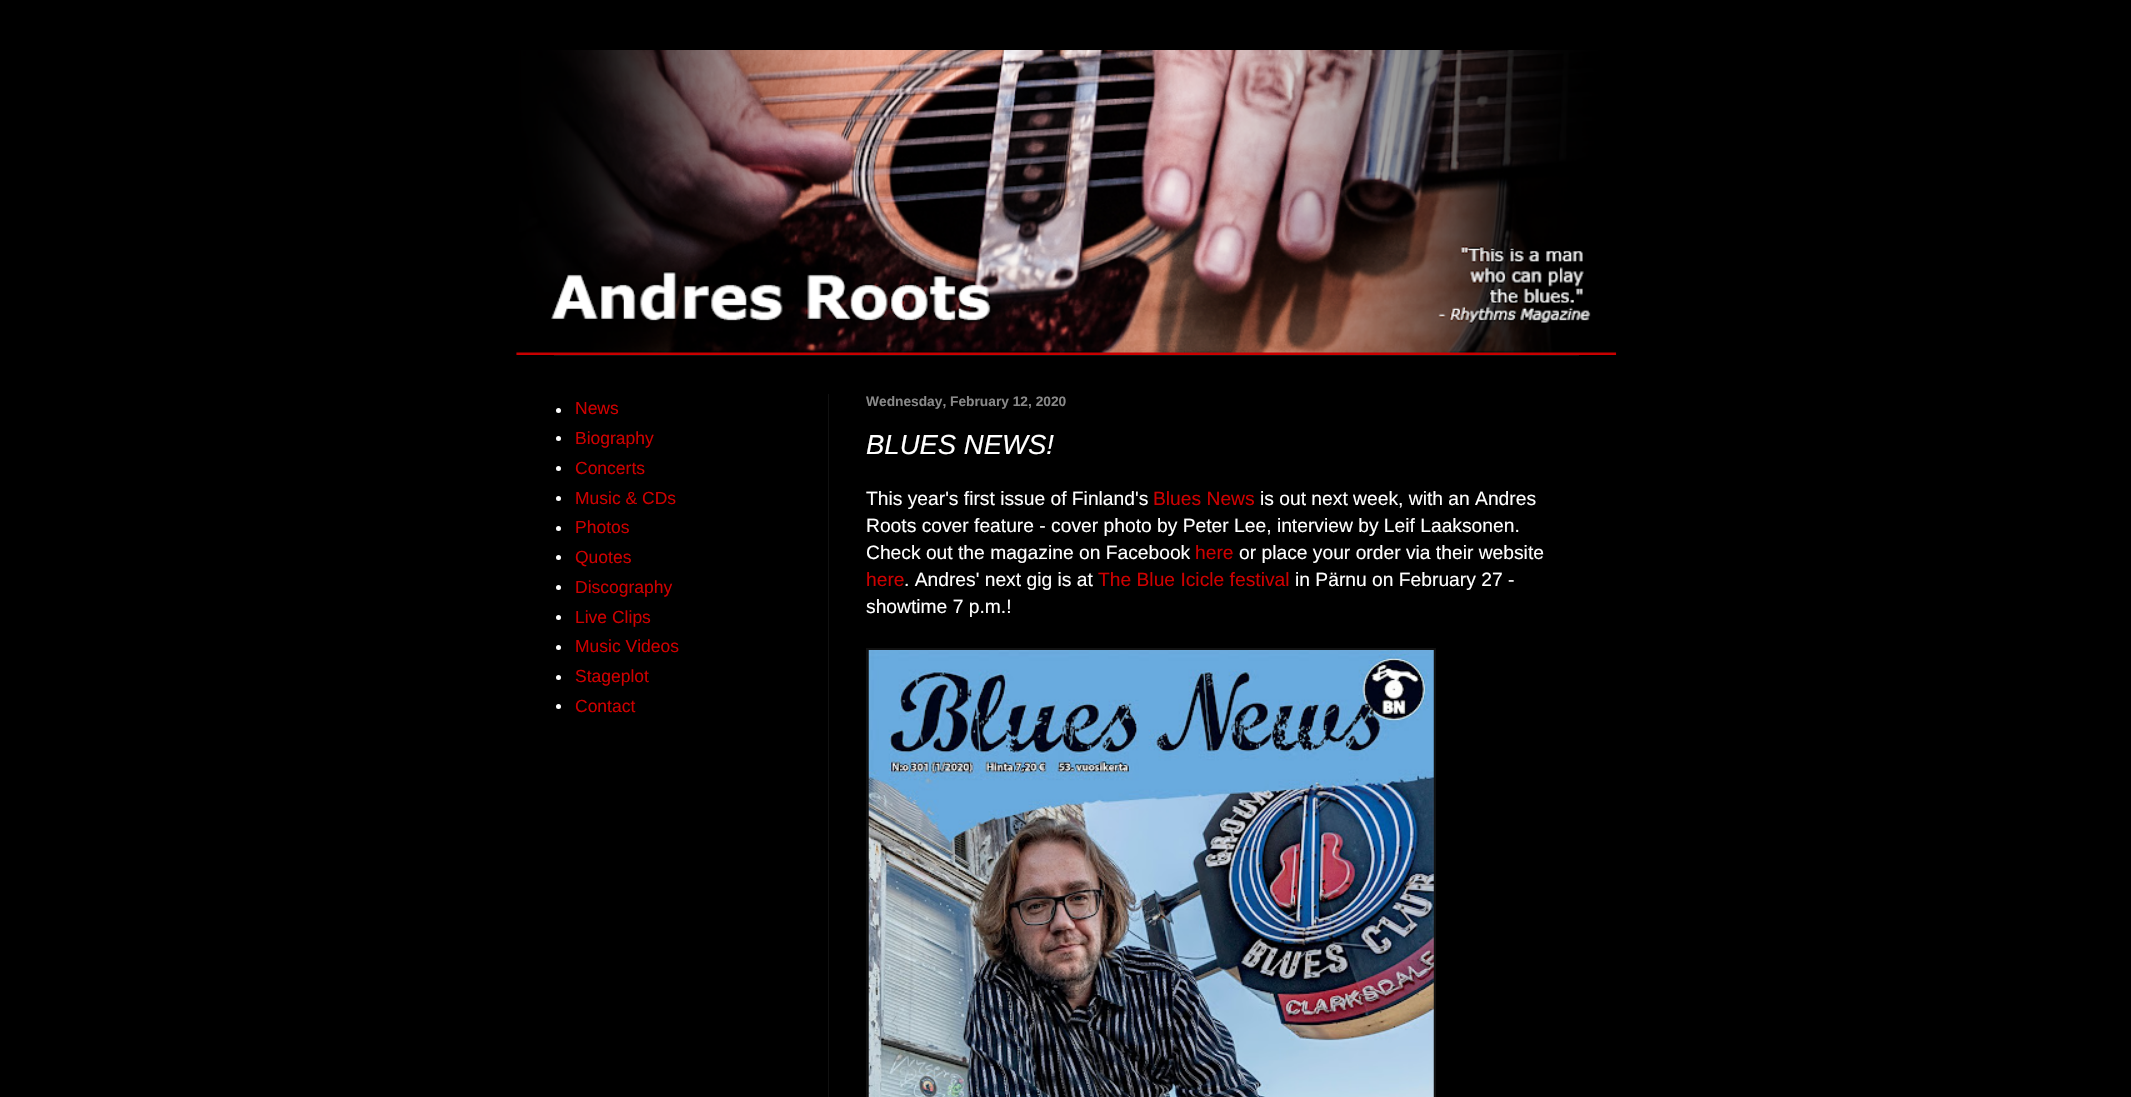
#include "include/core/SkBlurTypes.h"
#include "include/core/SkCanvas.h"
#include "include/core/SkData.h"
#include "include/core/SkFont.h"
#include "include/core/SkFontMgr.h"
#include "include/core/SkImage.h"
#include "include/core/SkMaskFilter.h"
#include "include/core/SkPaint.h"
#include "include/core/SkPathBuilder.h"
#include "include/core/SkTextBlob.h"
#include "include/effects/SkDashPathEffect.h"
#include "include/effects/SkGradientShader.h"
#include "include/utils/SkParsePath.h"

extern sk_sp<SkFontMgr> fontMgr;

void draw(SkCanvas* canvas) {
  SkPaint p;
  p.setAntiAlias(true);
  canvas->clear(SK_ColorBLACK);
  canvas->drawImageRect(SkImages::DeferredFromEncodedData(SkData::MakeFromFileName("images/1.png")), SkRect::MakeLTRB(516, 50, 1617, 355), SkSamplingOptions());
  p.setColor(SkColorSetRGB(17, 17, 17));
  canvas->drawRect(SkRect::MakeLTRB(554, 355, 1579, 356), p);
  canvas->drawRect(SkRect::MakeLTRB(828, 394, 829, 1097), p);
  p.setColor(SK_ColorWHITE);
  canvas->drawCircle(558.5f, 410.5f, 2.5f, p);
  canvas->drawCircle(558.5f, 438.5f, 2.5f, p);
  canvas->drawCircle(558.5f, 468.5f, 2.5f, p);
  canvas->drawCircle(558.5f, 498.5f, 2.5f, p);
  canvas->drawCircle(558.5f, 528.5f, 2.5f, p);
  canvas->drawCircle(558.5f, 557.5f, 2.5f, p);
  canvas->drawCircle(558.5f, 587.5f, 2.5f, p);
  canvas->drawCircle(558.5f, 617.5f, 2.5f, p);
  canvas->drawCircle(558.5f, 647.5f, 2.5f, p);
  canvas->drawCircle(558.5f, 677.5f, 2.5f, p);
  canvas->drawCircle(558.5f, 706.5f, 2.5f, p);
  p.setColor(SkColorSetRGB(17, 17, 17));
  canvas->drawRect(SkRect::MakeLTRB(866, 648, 1436, 1097), p);
  canvas->drawImageRect(SkImages::DeferredFromEncodedData(SkData::MakeFromFileName("images/2.png")), SkRect::MakeLTRB(868, 650, 1434, 1097), SkSamplingOptions());
  SkFont font1(fontMgr->matchFamilyStyle("Liberation Sans", SkFontStyle::Normal()), 17.5f);
  font1.setSubpixel(true);
  p.setColor(SkColorSetRGB(204, 0, 0));
  canvas->drawString("News", 575, 414, font1, p);
  canvas->drawString("Biography", 575, 444, font1, p);
  canvas->drawString("Concerts", 575, 474, font1, p);
  canvas->drawString("Music & CDs", 575, 504, font1, p);
  canvas->drawString("Photos", 575, 533, font1, p);
  canvas->drawString("Quotes", 575, 563, font1, p);
  canvas->drawString("Discography", 575, 593, font1, p);
  canvas->drawString("Live Clips", 575, 623, font1, p);
  canvas->drawString("Music Videos", 575, 652, font1, p);
  canvas->drawString("Stageplot", 575, 682, font1, p);
  canvas->drawString("Contact", 575, 712, font1, p);
  SkFont font2(fontMgr->matchFamilyStyle("Liberation Sans", SkFontStyle::Bold()), 13.75f);
  font2.setSubpixel(true);
  p.setColor(SkColorSetRGB(136, 136, 136));
  canvas->drawString("Wednesday, February 12, 2020", 866, 406, font2, p);
  SkFont font3(fontMgr->matchFamilyStyle("Liberation Sans", SkFontStyle::Italic()), 27.5f);
  font3.setSubpixel(true);
  p.setColor(SK_ColorWHITE);
  canvas->drawString("BLUES NEWS!", 866, 454, font3, p);
  SkFont font4(fontMgr->matchFamilyStyle("Liberation Sans", SkFontStyle::Normal()), 19.25f);
  font4.setSubpixel(true);
  canvas->drawString("This year's first issue of Finland's", 866, 505, font4, p);
  p.setColor(SkColorSetRGB(204, 0, 0));
  canvas->drawString("Blues News", 1153, 505, font4, p);
  p.setColor(SK_ColorWHITE);
  canvas->drawString("is out next week, with an Andres", 1260, 505, font4, p);
  canvas->drawString("Roots cover feature - cover photo by Peter Lee, interview by Leif Laaksonen.", 866, 532, font4, p);
  canvas->drawString("Check out the magazine on Facebook", 866, 559, font4, p);
  p.setColor(SkColorSetRGB(204, 0, 0));
  canvas->drawString("here", 1195, 559, font4, p);
  p.setColor(SK_ColorWHITE);
  canvas->drawString("or place your order via their website", 1239, 559, font4, p);
  p.setColor(SkColorSetRGB(204, 0, 0));
  canvas->drawString("here", 866, 586, font4, p);
  p.setColor(SK_ColorWHITE);
  canvas->drawString(". Andres' next gig is at", 904, 586, font4, p);
  p.setColor(SkColorSetRGB(204, 0, 0));
  canvas->drawString("The Blue Icicle festival", 1098, 586, font4, p);
  p.setColor(SK_ColorWHITE);
  canvas->drawString("in Pärnu on February 27 -", 1295, 586, font4, p);
  canvas->drawString("showtime 7 p.m.!", 866, 613, font4, p);
}
